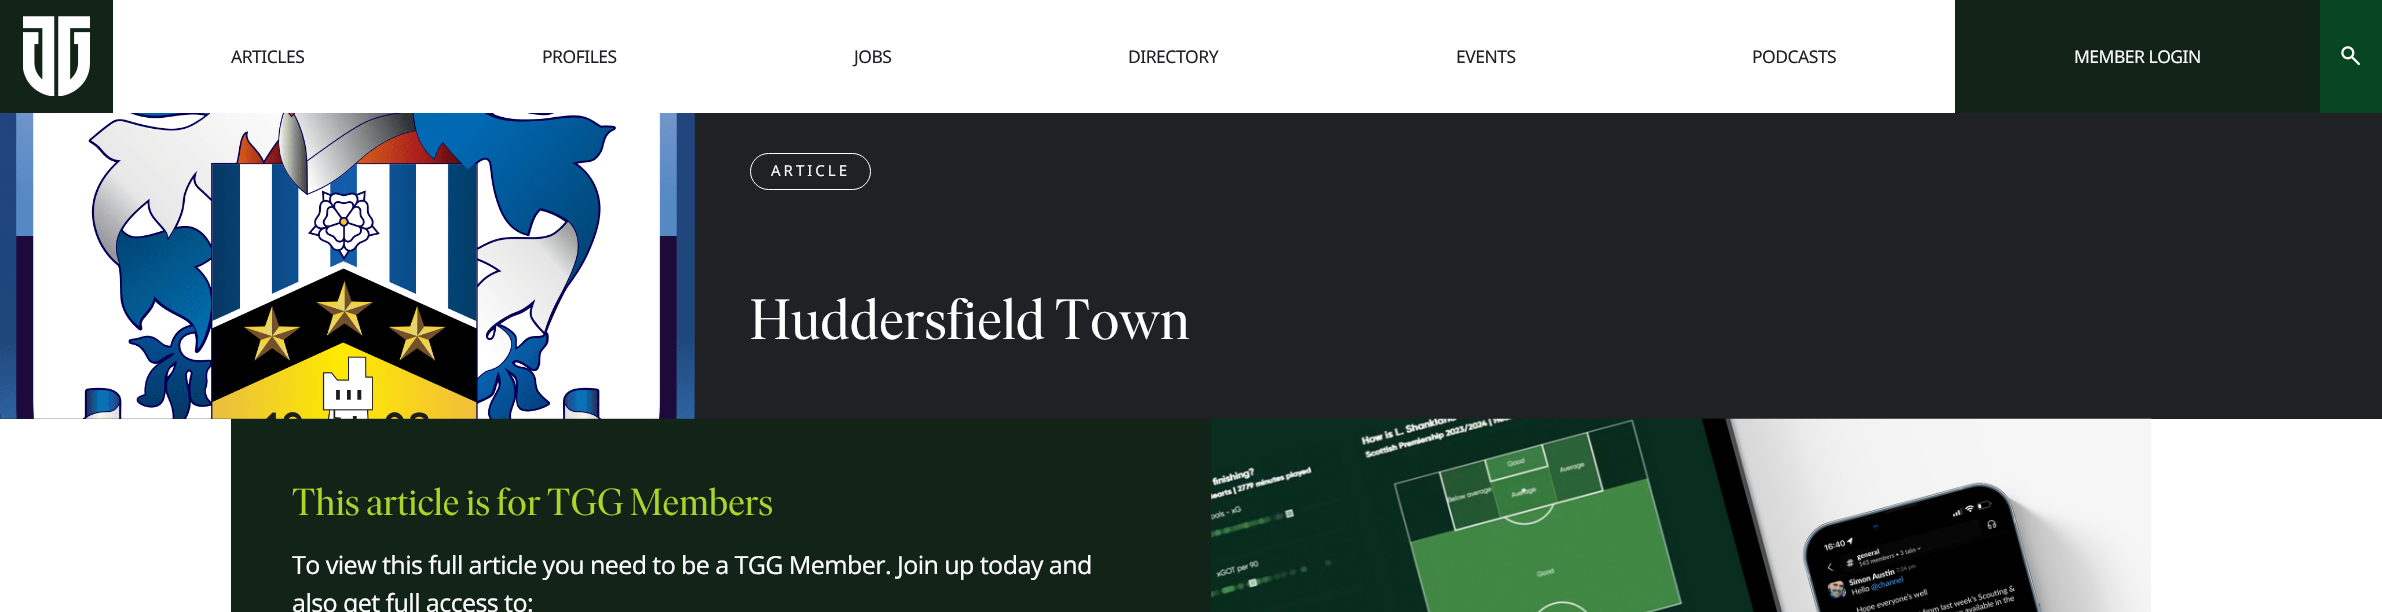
#include "include/core/SkBlurTypes.h"
#include "include/core/SkCanvas.h"
#include "include/core/SkData.h"
#include "include/core/SkFont.h"
#include "include/core/SkFontMgr.h"
#include "include/core/SkImage.h"
#include "include/core/SkMaskFilter.h"
#include "include/core/SkPaint.h"
#include "include/core/SkPathBuilder.h"
#include "include/core/SkTextBlob.h"
#include "include/effects/SkDashPathEffect.h"
#include "include/effects/SkGradientShader.h"
#include "include/utils/SkParsePath.h"

extern sk_sp<SkFontMgr> fontMgr;

void draw(SkCanvas* canvas) {
  SkPaint p;
  p.setAntiAlias(true);
  auto spacedText = [&](const char* s, float x, float y, const SkFont& font, const SkPaint& ink, float letter, float word) {
    std::vector<SkGlyphID> glyphs(font.countText(s, strlen(s), SkTextEncoding::kUTF8));
    std::vector<float> xs(glyphs.size());
    font.textToGlyphs(s, strlen(s), SkTextEncoding::kUTF8, glyphs);
    font.getXPos(glyphs, xs, x);
    float extra = 0;
    for (size_t i = 0; i < glyphs.size(); i++) {
      xs[i] += extra;
      extra += letter + word * (glyphs[i] == font.unicharToGlyph(' '));
    }
    canvas->drawTextBlob(SkTextBlob::MakeFromPosHGlyphs(glyphs, xs, y, font), 0, 0, ink);
  };
  canvas->clear(SK_ColorWHITE);
  p.setColor(SkColorSetRGB(18, 35, 23));
  canvas->drawRect(SkRect::MakeLTRB(0, 0, 113, 113), p);
  canvas->drawImageRect(SkImages::DeferredFromEncodedData(SkData::MakeFromFileName("images/1.png")), SkRect::MakeLTRB(23, 16, 90, 96), SkSamplingOptions());
  canvas->drawRect(SkRect::MakeLTRB(1955, 0, 2320, 113), p);
  p.setColor(SkColorSetRGB(7, 69, 35));
  canvas->drawRect(SkRect::MakeLTRB(2320, 0, 2382, 113), p);
  canvas->drawImageRect(SkImages::DeferredFromEncodedData(SkData::MakeFromFileName("images/2.png")), SkRect::MakeLTRB(2341, 46, 2360, 66), SkSamplingOptions());
  p.setColor(SkColorSetRGB(32, 33, 37));
  canvas->drawRect(SkRect::MakeLTRB(0, 113, 2382, 419), p);
  canvas->drawImageRect(SkImages::DeferredFromEncodedData(SkData::MakeFromFileName("images/3.png")), SkRect::MakeLTRB(0, 113, 695, 419), SkSamplingOptions());
  p.setStyle(SkPaint::kStroke_Style);
  p.setStrokeWidth(1);
  p.setColor(SK_ColorWHITE);
  canvas->drawRoundRect(SkRect::MakeLTRB(750.5f, 153.5f, 870.5f, 189.5f), 18, 18, p);
  p.setStyle(SkPaint::kFill_Style);
  p.setColor(SkColorSetRGB(18, 35, 23));
  canvas->drawRect(SkRect::MakeLTRB(231, 419, 1212, 612), p);
  canvas->drawImageRect(SkImages::DeferredFromEncodedData(SkData::MakeFromFileName("images/4.png")), SkRect::MakeLTRB(1211, 418, 2152, 612), SkSamplingOptions());
  SkFont font1(fontMgr->matchFamilyStyle("Noto Sans", SkFontStyle::Normal()), 17.5f);
  font1.setSubpixel(true);
  p.setColor(SkColorSetRGB(32, 33, 37));
  spacedText("ARTICLES", 231, 63, font1, p, -0.5f, 0);
  spacedText("PROFILES", 542, 63, font1, p, -0.5f, 0);
  spacedText("JOBS", 854, 63, font1, p, -0.5f, 0);
  spacedText("DIRECTORY", 1128, 63, font1, p, -0.5f, 0);
  spacedText("EVENTS", 1456, 63, font1, p, -0.5f, 0);
  spacedText("PODCASTS", 1752, 63, font1, p, -0.5f, 0);
  p.setColor(SK_ColorWHITE);
  spacedText("MEMBER LOGIN", 2074, 63, font1, p, -0.5f, 0);
  SkFont font2(fontMgr->matchFamilyStyle("Noto Sans", SkFontStyle::Normal()), 15);
  font2.setSubpixel(true);
  spacedText("ARTICLE", 771, 176, font2, p, 3, 0);
  SkFont font3(fontMgr->matchFamilyStyle("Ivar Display", SkFontStyle::Normal()), 56.25f);
  font3.setSubpixel(true);
  spacedText("Huddersfield Town", 750, 339, font3, p, 0.6f, 0);
  SkFont font4(fontMgr->matchFamilyStyle("Ivar Display", SkFontStyle::Normal()), 37.5f);
  font4.setSubpixel(true);
  p.setColor(SkColorSetRGB(170, 213, 41));
  spacedText("This article is for TGG Members", 292, 515, font4, p, 0.4f, 0);
  SkFont font5(fontMgr->matchFamilyStyle("Noto Sans", SkFontStyle::Normal()), 25);
  font5.setSubpixel(true);
  p.setColor(SK_ColorWHITE);
  spacedText("To view this full article you need to be a TGG Member. Join up today and", 292, 574, font5, p, -0.62f, 0);
  spacedText("also get full access to:", 292, 612, font5, p, -0.62f, 0);
}
